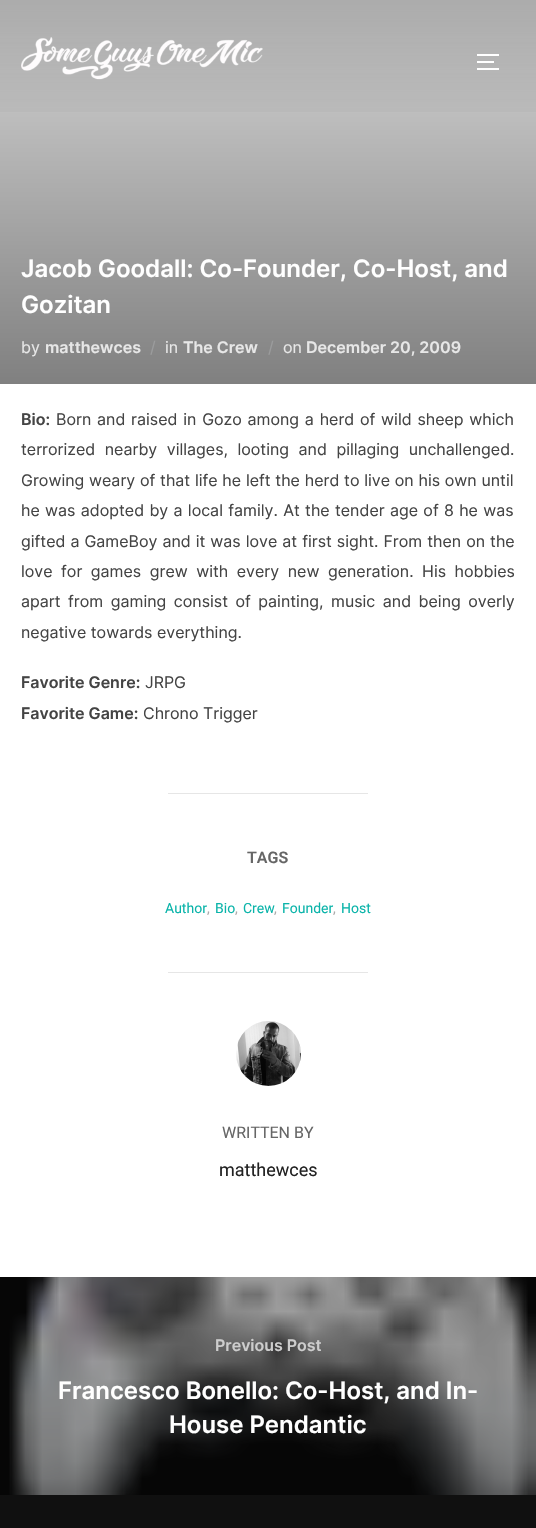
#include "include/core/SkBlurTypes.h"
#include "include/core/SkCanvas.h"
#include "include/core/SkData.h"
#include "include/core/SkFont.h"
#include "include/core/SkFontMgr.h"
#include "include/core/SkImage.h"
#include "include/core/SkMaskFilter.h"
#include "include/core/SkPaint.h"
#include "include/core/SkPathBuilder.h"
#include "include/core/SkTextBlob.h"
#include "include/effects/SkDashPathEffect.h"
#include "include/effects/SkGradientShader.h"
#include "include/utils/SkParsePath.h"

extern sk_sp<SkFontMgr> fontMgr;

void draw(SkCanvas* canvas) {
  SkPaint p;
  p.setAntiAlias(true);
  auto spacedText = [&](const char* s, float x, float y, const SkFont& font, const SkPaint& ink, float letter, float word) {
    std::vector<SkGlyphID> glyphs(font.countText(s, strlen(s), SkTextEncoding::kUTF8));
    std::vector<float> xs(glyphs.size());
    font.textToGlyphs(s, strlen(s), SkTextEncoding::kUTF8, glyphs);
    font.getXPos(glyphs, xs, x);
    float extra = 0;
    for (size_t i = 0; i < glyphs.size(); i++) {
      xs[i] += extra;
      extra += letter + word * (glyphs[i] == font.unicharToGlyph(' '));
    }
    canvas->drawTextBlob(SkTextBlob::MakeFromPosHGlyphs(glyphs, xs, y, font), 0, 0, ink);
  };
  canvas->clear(SK_ColorWHITE);
  {
    const SkColor colors[] = {SkColorSetRGB(230, 230, 230), SkColorSetRGB(128, 128, 128)};
    const float stops[] = {0, 1};
    const SkPoint ends[] = {{268, -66}, {268, 384}};
    p.setShader(SkGradientShader::MakeLinear(ends, colors, stops, 2, SkTileMode::kClamp));
    p.setAlpha(255);
  }
  canvas->drawRect(SkRect::MakeLTRB(0, 0, 536, 384), p);
  {
    const SkColor colors[] = {SkColorSetARGB(51, 0, 0, 0), SkColorSetARGB(0, 0, 0, 0)};
    const float stops[] = {0.01f, 1};
    const SkPoint ends[] = {{268, 0}, {268, 125}};
    p.setShader(SkGradientShader::MakeLinear(ends, colors, stops, 2, SkTileMode::kClamp));
    p.setAlpha(255);
  }
  canvas->drawRect(SkRect::MakeLTRB(0, 0, 536, 112), p);
  canvas->drawImageRect(SkImages::DeferredFromEncodedData(SkData::MakeFromFileName("images/1.png")), SkRect::MakeLTRB(21, 37, 263, 80), SkSamplingOptions());
  p.setShader(nullptr);
  p.setColor(SK_ColorWHITE);
  canvas->drawRect(SkRect::MakeLTRB(477, 54, 499, 56), p);
  canvas->drawRect(SkRect::MakeLTRB(477, 61, 494, 63), p);
  canvas->drawRect(SkRect::MakeLTRB(477, 68, 499, 70), p);
  p.setColor(SkColorSetRGB(230, 230, 230));
  canvas->drawRect(SkRect::MakeLTRB(168, 793, 368, 794), p);
  canvas->drawRect(SkRect::MakeLTRB(168, 972, 368, 973), p);
  canvas->drawImageRect(SkImages::DeferredFromEncodedData(SkData::MakeFromFileName("images/2.png")), SkRect::MakeLTRB(236, 1021, 301, 1086), SkSamplingOptions());
  p.setColor(SkColorSetRGB(6, 6, 6));
  canvas->drawRect(SkRect::MakeLTRB(0, 1277, 536, 1495), p);
  canvas->drawImageRect(SkImages::DeferredFromEncodedData(SkData::MakeFromFileName("images/3.png")), SkRect::MakeLTRB(9, 1277, 536, 1495), SkSamplingOptions());
  p.setColor(SkColorSetRGB(16, 16, 16));
  canvas->drawRect(SkRect::MakeLTRB(0, 1495, 536, 1528), p);
  SkFont font1(fontMgr->matchFamilyStyle("Inter", SkFontStyle(600, SkFontStyle::kNormal_Width, SkFontStyle::kUpright_Slant)), 24);
  font1.setSubpixel(true);
  p.setColor(SK_ColorWHITE);
  canvas->drawString("Jacob Goodall: Co-Founder, Co-Host, and", 21, 277, font1, p);
  canvas->drawString("Gozitan", 21, 313, font1, p);
  SkFont font2(fontMgr->matchFamilyStyle("Inter", SkFontStyle::Normal()), 16);
  font2.setSubpixel(true);
  p.setColor(SkColorSetRGB(231, 231, 231));
  canvas->drawString("by", 21, 353, font2, p);
  SkFont font3(fontMgr->matchFamilyStyle("Inter", SkFontStyle(600, SkFontStyle::kNormal_Width, SkFontStyle::kUpright_Slant)), 16);
  font3.setSubpixel(true);
  canvas->drawString("matthewces", 45, 353, font3, p);
  p.setColor(SkColorSetRGB(155, 156, 157));
  canvas->drawString("/", 150, 353, font2, p);
  p.setColor(SkColorSetRGB(231, 231, 231));
  canvas->drawString("in", 165, 353, font2, p);
  canvas->drawString("The Crew", 183, 353, font3, p);
  p.setColor(SkColorSetRGB(155, 156, 157));
  canvas->drawString("/", 268, 353, font2, p);
  p.setColor(SkColorSetRGB(231, 231, 231));
  canvas->drawString("on", 283, 353, font2, p);
  canvas->drawString("December 20, 2009", 306, 353, font3, p);
  p.setColor(SkColorSetRGB(68, 68, 68));
  canvas->drawString("Bio:", 21, 425, font3, p);
  spacedText("Born and raised in Gozo among a herd of wild sheep which", 56, 425, font2, p, 0, 1.25f);
  spacedText("terrorized nearby villages, looting and pillaging unchallenged.", 21, 455, font2, p, 0, 5);
  spacedText("Growing weary of that life he left the herd to live on his own until", 21, 486, font2, p, 0, 0.25f);
  spacedText("he was adopted by a local family. At the tender age of 8 he was", 21, 516, font2, p, 0, 0.8f);
  spacedText("gifted a GameBoy and it was love at first sight. From then on the", 21, 547, font2, p, 0, 0.5f);
  spacedText("love for games grew with every new generation. His hobbies", 21, 577, font2, p, 0, 4);
  spacedText("apart from gaming consist of painting, music and being overly", 21, 607, font2, p, 0, 3);
  canvas->drawString("negative towards everything.", 21, 638, font2, p);
  canvas->drawString("Favorite Genre:", 21, 688, font3, p);
  canvas->drawString("JRPG", 145, 688, font2, p);
  canvas->drawString("Favorite Game:", 21, 719, font3, p);
  canvas->drawString("Chrono Trigger", 143, 719, font2, p);
  SkFont font4(fontMgr->matchFamilyStyle("Roboto", SkFontStyle(600, SkFontStyle::kNormal_Width, SkFontStyle::kUpright_Slant)), 16);
  font4.setSubpixel(true);
  p.setColor(SkColorSetRGB(102, 102, 102));
  canvas->drawString("TAGS", 247, 863, font4, p);
  SkFont font5(fontMgr->matchFamilyStyle("Roboto", SkFontStyle::Normal()), 14);
  font5.setSubpixel(true);
  p.setColor(SkColorSetRGB(11, 180, 170));
  canvas->drawString("Author", 165, 913, font5, p);
  p.setColor(SkColorSetRGB(170, 170, 170));
  canvas->drawString(",", 207, 913, font5, p);
  p.setColor(SkColorSetRGB(11, 180, 170));
  canvas->drawString("Bio", 215, 913, font5, p);
  p.setColor(SkColorSetRGB(170, 170, 170));
  canvas->drawString(",", 235, 913, font5, p);
  p.setColor(SkColorSetRGB(11, 180, 170));
  canvas->drawString("Crew", 243, 913, font5, p);
  p.setColor(SkColorSetRGB(170, 170, 170));
  canvas->drawString(",", 274, 913, font5, p);
  p.setColor(SkColorSetRGB(11, 180, 170));
  canvas->drawString("Founder", 282, 913, font5, p);
  p.setColor(SkColorSetRGB(170, 170, 170));
  canvas->drawString(",", 333, 913, font5, p);
  p.setColor(SkColorSetRGB(11, 180, 170));
  canvas->drawString("Host", 341, 913, font5, p);
  SkFont font6(fontMgr->matchFamilyStyle("Roboto", SkFontStyle::Normal()), 16);
  font6.setSubpixel(true);
  p.setColor(SkColorSetRGB(102, 102, 102));
  canvas->drawString("WRITTEN BY", 222, 1138, font6, p);
  SkFont font7(fontMgr->matchFamilyStyle("Roboto", SkFontStyle::Normal()), 18);
  font7.setSubpixel(true);
  p.setColor(SkColorSetRGB(34, 34, 34));
  canvas->drawString("matthewces", 219, 1176, font7, p);
  p.setColor(SkColorSetRGB(205, 205, 205));
  canvas->drawString("Previous Post", 215, 1351, font3, p);
  p.setColor(SK_ColorWHITE);
  canvas->drawString("Francesco Bonello: Co-Host, and In-", 58, 1399, font1, p);
  canvas->drawString("House Pendantic", 169, 1433, font1, p);
}
